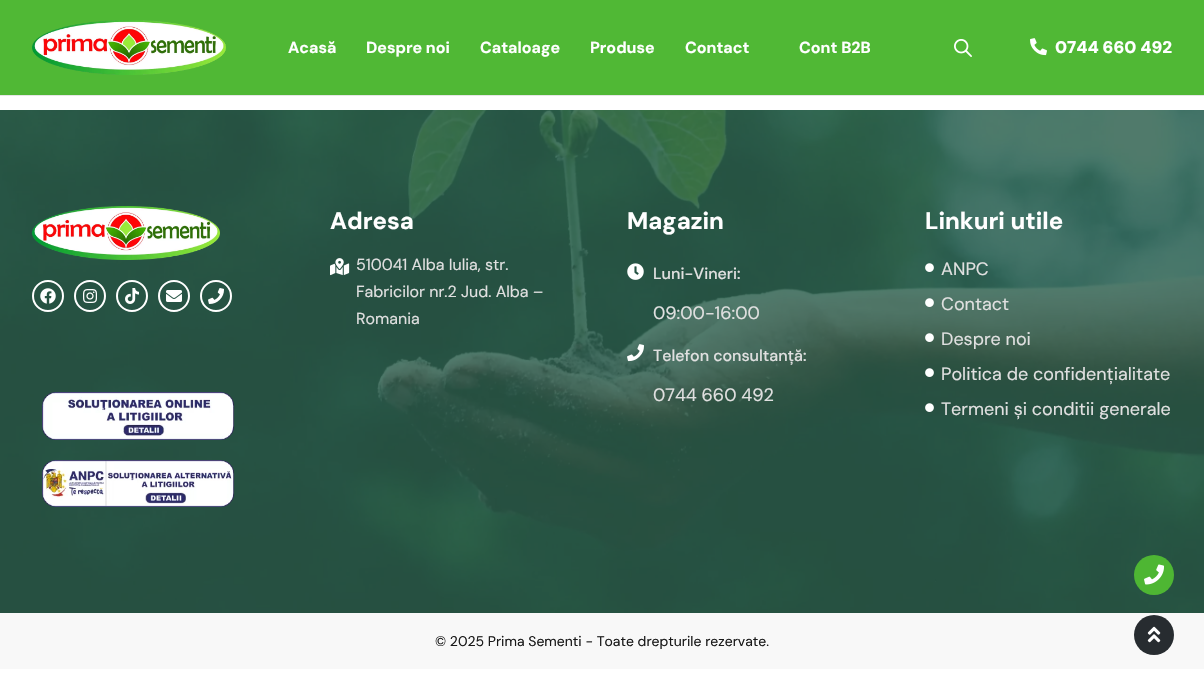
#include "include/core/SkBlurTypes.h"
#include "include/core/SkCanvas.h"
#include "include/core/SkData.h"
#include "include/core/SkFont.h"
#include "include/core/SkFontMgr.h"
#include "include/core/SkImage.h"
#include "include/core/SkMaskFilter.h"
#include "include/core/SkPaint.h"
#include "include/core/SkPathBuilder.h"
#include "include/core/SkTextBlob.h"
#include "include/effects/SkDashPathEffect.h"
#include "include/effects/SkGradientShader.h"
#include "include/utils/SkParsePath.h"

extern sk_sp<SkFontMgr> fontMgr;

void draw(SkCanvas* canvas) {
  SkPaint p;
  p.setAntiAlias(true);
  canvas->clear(SK_ColorWHITE);
  p.setColor(SkColorSetRGB(80, 184, 53));
  canvas->drawRect(SkRect::MakeLTRB(0, 0, 1204, 95), p);
  p.setColor(SkColorSetRGB(230, 230, 230));
  canvas->drawRect(SkRect::MakeLTRB(0, 95, 1204, 96), p);
  canvas->drawImageRect(SkImages::DeferredFromEncodedData(SkData::MakeFromFileName("images/1.png")), SkRect::MakeLTRB(32, 20, 226, 75), SkSamplingOptions());
  canvas->drawImageRect(SkImages::DeferredFromEncodedData(SkData::MakeFromFileName("images/2.png")), SkRect::MakeLTRB(954, 39, 972, 57), SkSamplingOptions());
  canvas->drawImageRect(SkImages::DeferredFromEncodedData(SkData::MakeFromFileName("images/3.png")), SkRect::MakeLTRB(1030, 38, 1047, 56), SkSamplingOptions());
  canvas->drawImageRect(SkImages::DeferredFromEncodedData(SkData::MakeFromFileName("images/4.png")), SkRect::MakeLTRB(0, 110, 1204, 613), SkSamplingOptions());
  canvas->drawImageRect(SkImages::DeferredFromEncodedData(SkData::MakeFromFileName("images/5.png")), SkRect::MakeLTRB(32, 206, 220, 260), SkSamplingOptions());
  p.setStyle(SkPaint::kStroke_Style);
  p.setStrokeWidth(2);
  p.setColor(SK_ColorWHITE);
  canvas->drawCircle(48, 296, 15, p);
  canvas->drawImageRect(SkImages::DeferredFromEncodedData(SkData::MakeFromFileName("images/6.png")), SkRect::MakeLTRB(40, 288, 56, 304), SkSamplingOptions());
  canvas->drawCircle(90, 296, 15, p);
  canvas->drawImageRect(SkImages::DeferredFromEncodedData(SkData::MakeFromFileName("images/7.png")), SkRect::MakeLTRB(83, 289, 97, 303), SkSamplingOptions());
  canvas->drawCircle(132, 296, 15, p);
  canvas->drawImageRect(SkImages::DeferredFromEncodedData(SkData::MakeFromFileName("images/8.png")), SkRect::MakeLTRB(125, 288, 139, 304), SkSamplingOptions());
  canvas->drawCircle(174, 296, 15, p);
  canvas->drawImageRect(SkImages::DeferredFromEncodedData(SkData::MakeFromFileName("images/9.png")), SkRect::MakeLTRB(166, 290, 182, 302), SkSamplingOptions());
  canvas->drawCircle(216, 296, 15, p);
  canvas->drawImageRect(SkImages::DeferredFromEncodedData(SkData::MakeFromFileName("images/10.png")), SkRect::MakeLTRB(208, 288, 224, 304), SkSamplingOptions());
  canvas->drawImageRect(SkImages::DeferredFromEncodedData(SkData::MakeFromFileName("images/11.png")), SkRect::MakeLTRB(42, 392, 235, 440), SkSamplingOptions());
  canvas->drawImageRect(SkImages::DeferredFromEncodedData(SkData::MakeFromFileName("images/12.png")), SkRect::MakeLTRB(42, 460, 235, 507), SkSamplingOptions());
  canvas->drawImageRect(SkImages::DeferredFromEncodedData(SkData::MakeFromFileName("images/13.png")), SkRect::MakeLTRB(330, 258, 350, 276), SkSamplingOptions());
  canvas->drawImageRect(SkImages::DeferredFromEncodedData(SkData::MakeFromFileName("images/14.png")), SkRect::MakeLTRB(627, 263, 644, 280), SkSamplingOptions());
  canvas->drawImageRect(SkImages::DeferredFromEncodedData(SkData::MakeFromFileName("images/15.png")), SkRect::MakeLTRB(627, 344, 644, 362), SkSamplingOptions());
  canvas->drawImageRect(SkImages::DeferredFromEncodedData(SkData::MakeFromFileName("images/16.png")), SkRect::MakeLTRB(925, 263, 934, 272), SkSamplingOptions());
  canvas->drawImageRect(SkImages::DeferredFromEncodedData(SkData::MakeFromFileName("images/17.png")), SkRect::MakeLTRB(925, 298, 934, 307), SkSamplingOptions());
  canvas->drawImageRect(SkImages::DeferredFromEncodedData(SkData::MakeFromFileName("images/18.png")), SkRect::MakeLTRB(925, 333, 934, 342), SkSamplingOptions());
  canvas->drawImageRect(SkImages::DeferredFromEncodedData(SkData::MakeFromFileName("images/19.png")), SkRect::MakeLTRB(925, 368, 934, 377), SkSamplingOptions());
  canvas->drawImageRect(SkImages::DeferredFromEncodedData(SkData::MakeFromFileName("images/20.png")), SkRect::MakeLTRB(925, 403, 934, 412), SkSamplingOptions());
  p.setStyle(SkPaint::kFill_Style);
  p.setColor(SkColorSetARGB(252, 78, 183, 51));
  canvas->drawCircle(1154, 575, 20, p);
  canvas->drawImageRect(SkImages::DeferredFromEncodedData(SkData::MakeFromFileName("images/21.png")), SkRect::MakeLTRB(1144, 564, 1164, 585), SkSamplingOptions());
  p.setColor(SkColorSetRGB(248, 248, 248));
  canvas->drawRect(SkRect::MakeLTRB(0, 613, 1204, 669), p);
  p.setColor(SkColorSetRGB(39, 44, 48));
  canvas->drawCircle(1154, 635, 20, p);
  canvas->drawImageRect(SkImages::DeferredFromEncodedData(SkData::MakeFromFileName("images/22.png")), SkRect::MakeLTRB(1147, 626, 1161, 643), SkSamplingOptions());
  SkFont font1(fontMgr->matchFamilyStyle("DM Sans", SkFontStyle::Bold()), 16);
  font1.setSubpixel(true);
  p.setColor(SK_ColorWHITE);
  canvas->drawString("Acasă", 288, 53, font1, p);
  canvas->drawString("Despre noi", 366, 53, font1, p);
  canvas->drawString("Cataloage", 480, 53, font1, p);
  canvas->drawString("Produse", 590, 53, font1, p);
  canvas->drawString("Contact", 685, 53, font1, p);
  canvas->drawString("Cont B2B", 799, 53, font1, p);
  SkFont font2(fontMgr->matchFamilyStyle("DM Sans", SkFontStyle(900, SkFontStyle::kNormal_Width, SkFontStyle::kUpright_Slant)), 17);
  font2.setSubpixel(true);
  canvas->drawString("0744 660 492", 1055, 53, font2, p);
  SkFont font3(fontMgr->matchFamilyStyle("DM Sans", SkFontStyle::Bold()), 24);
  font3.setSubpixel(true);
  canvas->drawString("Adresa", 330, 229, font3, p);
  SkFont font4(fontMgr->matchFamilyStyle("DM Sans", SkFontStyle::Normal()), 16);
  font4.setSubpixel(true);
  p.setColor(SkColorSetRGB(224, 224, 224));
  canvas->drawString("510041 Alba Iulia, str.", 356, 270, font4, p);
  canvas->drawString("Fabricilor nr.2 Jud. Alba –", 356, 297, font4, p);
  canvas->drawString("Romania", 356, 324, font4, p);
  p.setColor(SK_ColorWHITE);
  canvas->drawString("Magazin", 627, 229, font3, p);
  SkFont font5(fontMgr->matchFamilyStyle("DM Sans", SkFontStyle(500, SkFontStyle::kNormal_Width, SkFontStyle::kUpright_Slant)), 16);
  font5.setSubpixel(true);
  p.setColor(SkColorSetRGB(224, 224, 224));
  canvas->drawString("Luni-Vineri:", 653, 279, font5, p);
  SkFont font6(fontMgr->matchFamilyStyle("DM Sans", SkFontStyle::Normal()), 18);
  font6.setSubpixel(true);
  canvas->drawString("09:00-16:00", 653, 319, font6, p);
  canvas->drawString("Telefon consultanță:", 653, 361, font5, p);
  canvas->drawString("0744 660 492", 653, 401, font6, p);
  p.setColor(SK_ColorWHITE);
  canvas->drawString("Linkuri utile", 925, 229, font3, p);
  p.setColor(SkColorSetRGB(224, 224, 224));
  canvas->drawString("ANPC", 941, 275, font6, p);
  canvas->drawString("Contact", 941, 310, font6, p);
  canvas->drawString("Despre noi", 941, 345, font6, p);
  canvas->drawString("Politica de confidențialitate", 941, 380, font6, p);
  canvas->drawString("Termeni și conditii generale", 941, 415, font6, p);
  SkFont font7(fontMgr->matchFamilyStyle("DM Sans", SkFontStyle::Normal()), 14);
  font7.setSubpixel(true);
  p.setColor(SkColorSetRGB(25, 25, 25));
  canvas->drawString("© 2025 Prima Sementi - Toate drepturile rezervate.", 435, 646, font7, p);
}
